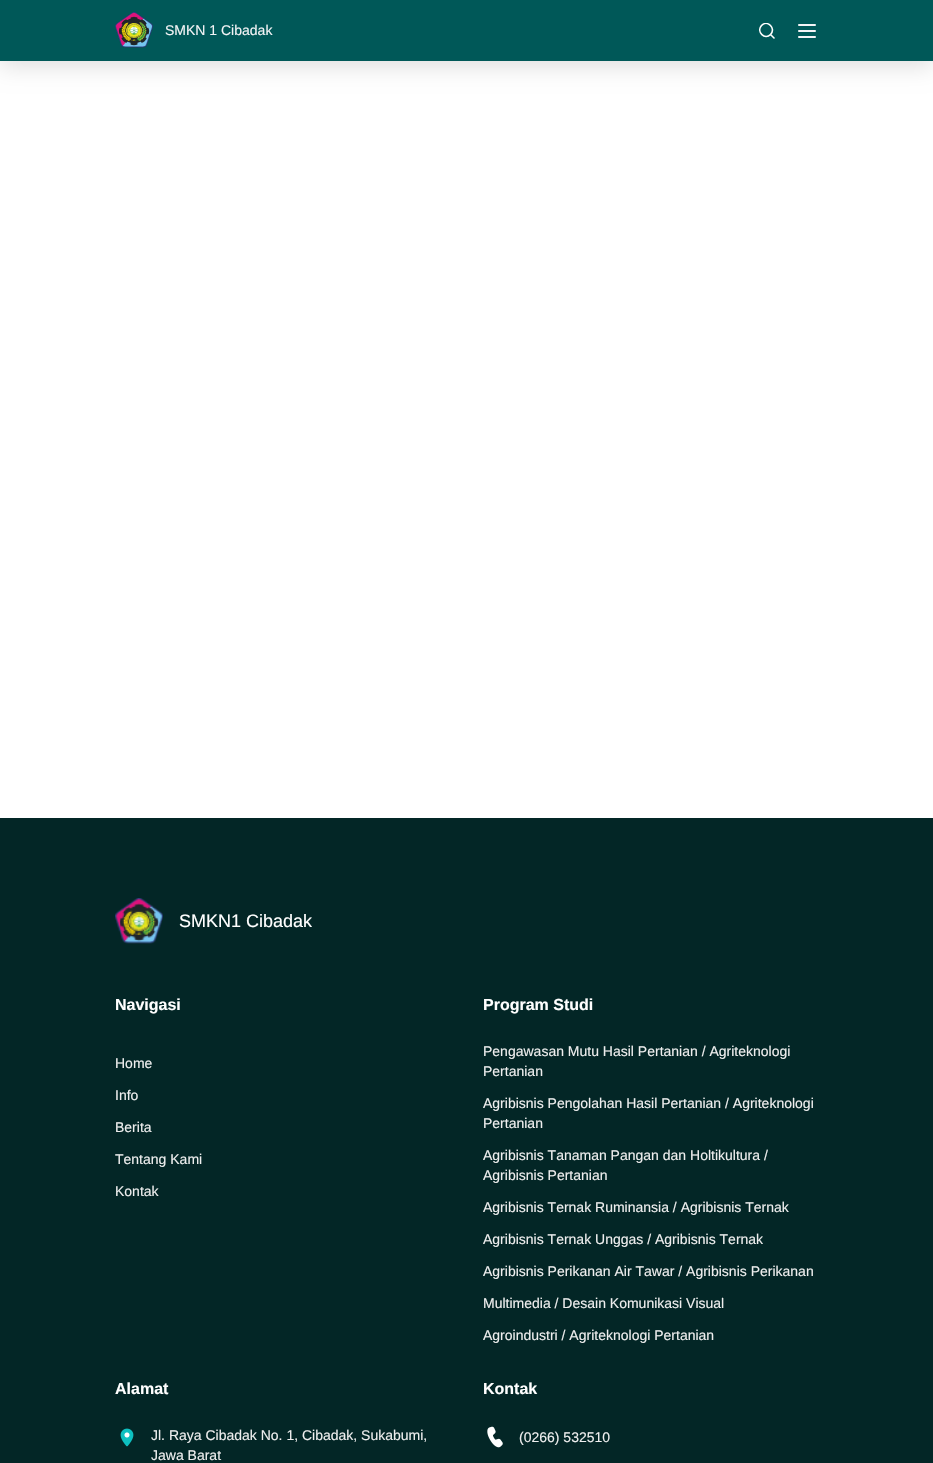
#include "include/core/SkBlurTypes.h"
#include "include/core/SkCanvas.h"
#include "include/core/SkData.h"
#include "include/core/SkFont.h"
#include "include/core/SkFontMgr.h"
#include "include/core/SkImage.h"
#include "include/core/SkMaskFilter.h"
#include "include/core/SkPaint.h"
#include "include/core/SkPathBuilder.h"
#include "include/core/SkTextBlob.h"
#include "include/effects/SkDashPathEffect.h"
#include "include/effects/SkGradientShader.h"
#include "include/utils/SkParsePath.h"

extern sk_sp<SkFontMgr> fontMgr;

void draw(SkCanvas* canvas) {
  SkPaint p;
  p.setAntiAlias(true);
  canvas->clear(SK_ColorWHITE);
  p.setColor(SkColorSetARGB(36, 0, 0, 0));
  p.setMaskFilter(SkMaskFilter::MakeBlur(kNormal_SkBlurStyle, 12.5f));
  canvas->drawRect(SkRect::MakeLTRB(0, 4, 933, 65), p);
  p.setMaskFilter(nullptr);
  p.setColor(SkColorSetRGB(0, 88, 88));
  canvas->drawRect(SkRect::MakeLTRB(0, 0, 933, 61), p);
  canvas->drawImageRect(SkImages::DeferredFromEncodedData(SkData::MakeFromFileName("images/1.png")), SkRect::MakeLTRB(115, 12, 153, 48), SkSamplingOptions());
  canvas->save();
  canvas->clipRect(SkRect::MakeLTRB(759, 23, 775, 39));
  p.setStyle(SkPaint::kStroke_Style);
  p.setStrokeWidth(1.6f);
  p.setStrokeCap(SkPaint::kRound_Cap);
  p.setStrokeJoin(SkPaint::kRound_Join);
  p.setColor(SK_ColorWHITE);
  canvas->drawPath(SkPathBuilder().moveTo(774, 38).lineTo(770.5f, 34.5f).moveTo(770.5f, 34.5f).cubicTo(776.5f, 28.5f, 767.5f, 19.5f, 761.5f, 25.5f).cubicTo(756, 32, 765, 40.5f, 770.5f, 34.5f).close().detach(), p);
  canvas->restore();
  canvas->drawImageRect(SkImages::DeferredFromEncodedData(SkData::MakeFromFileName("images/2.png")), SkRect::MakeLTRB(798, 24, 816, 38), SkSamplingOptions());
  p.setStyle(SkPaint::kFill_Style);
  p.setColor(SkColorSetRGB(3, 38, 38));
  canvas->drawRect(SkRect::MakeLTRB(0, 818, 933, 1463), p);
  canvas->drawImageRect(SkImages::DeferredFromEncodedData(SkData::MakeFromFileName("images/3.png")), SkRect::MakeLTRB(115, 898, 163, 944), SkSamplingOptions());
  canvas->drawImageRect(SkImages::DeferredFromEncodedData(SkData::MakeFromFileName("images/4.png")), SkRect::MakeLTRB(120, 1428, 134, 1447), SkSamplingOptions());
  canvas->drawImageRect(SkImages::DeferredFromEncodedData(SkData::MakeFromFileName("images/5.png")), SkRect::MakeLTRB(487, 1426, 503, 1448), SkSamplingOptions());
  SkFont font1(fontMgr->matchFamilyStyle("Liberation Sans", SkFontStyle::Normal()), 14);
  font1.setSubpixel(true);
  p.setColor(SkColorSetRGB(243, 244, 246));
  canvas->drawString("SMKN 1 Cibadak", 165, 35, font1, p);
  SkFont font2(fontMgr->matchFamilyStyle("Liberation Sans", SkFontStyle::Normal()), 18);
  font2.setSubpixel(true);
  p.setColor(SK_ColorWHITE);
  canvas->drawString("SMKN1 Cibadak", 179, 927, font2, p);
  SkFont font3(fontMgr->matchFamilyStyle("Liberation Sans", SkFontStyle::Bold()), 16);
  font3.setSubpixel(true);
  canvas->drawString("Navigasi", 115, 1010, font3, p);
  p.setColor(SkColorSetRGB(238, 238, 238));
  canvas->drawString("Home", 115, 1068, font1, p);
  canvas->drawString("Info", 115, 1100, font1, p);
  canvas->drawString("Berita", 115, 1132, font1, p);
  canvas->drawString("Tentang Kami", 115, 1164, font1, p);
  canvas->drawString("Kontak", 115, 1196, font1, p);
  p.setColor(SK_ColorWHITE);
  canvas->drawString("Program Studi", 483, 1010, font3, p);
  p.setColor(SkColorSetRGB(238, 238, 238));
  canvas->drawString("Pengawasan Mutu Hasil Pertanian / Agriteknologi", 483, 1056, font1, p);
  canvas->drawString("Pertanian", 483, 1076, font1, p);
  canvas->drawString("Agribisnis Pengolahan Hasil Pertanian / Agriteknologi", 483, 1108, font1, p);
  canvas->drawString("Pertanian", 483, 1128, font1, p);
  canvas->drawString("Agribisnis Tanaman Pangan dan Holtikultura /", 483, 1160, font1, p);
  canvas->drawString("Agribisnis Pertanian", 483, 1180, font1, p);
  canvas->drawString("Agribisnis Ternak Ruminansia / Agribisnis Ternak", 483, 1212, font1, p);
  canvas->drawString("Agribisnis Ternak Unggas / Agribisnis Ternak", 483, 1244, font1, p);
  canvas->drawString("Agribisnis Perikanan Air Tawar / Agribisnis Perikanan", 483, 1276, font1, p);
  canvas->drawString("Multimedia / Desain Komunikasi Visual", 483, 1308, font1, p);
  canvas->drawString("Agroindustri / Agriteknologi Pertanian", 483, 1340, font1, p);
  p.setColor(SK_ColorWHITE);
  canvas->drawString("Alamat", 115, 1394, font3, p);
  p.setColor(SkColorSetRGB(238, 238, 238));
  canvas->drawString("Jl. Raya Cibadak No. 1, Cibadak, Sukabumi,", 151, 1440, font1, p);
  canvas->drawString("Jawa Barat", 151, 1460, font1, p);
  p.setColor(SK_ColorWHITE);
  canvas->drawString("Kontak", 483, 1394, font3, p);
  p.setColor(SkColorSetRGB(238, 238, 238));
  canvas->drawString("(0266) 532510", 519, 1442, font1, p);
}
